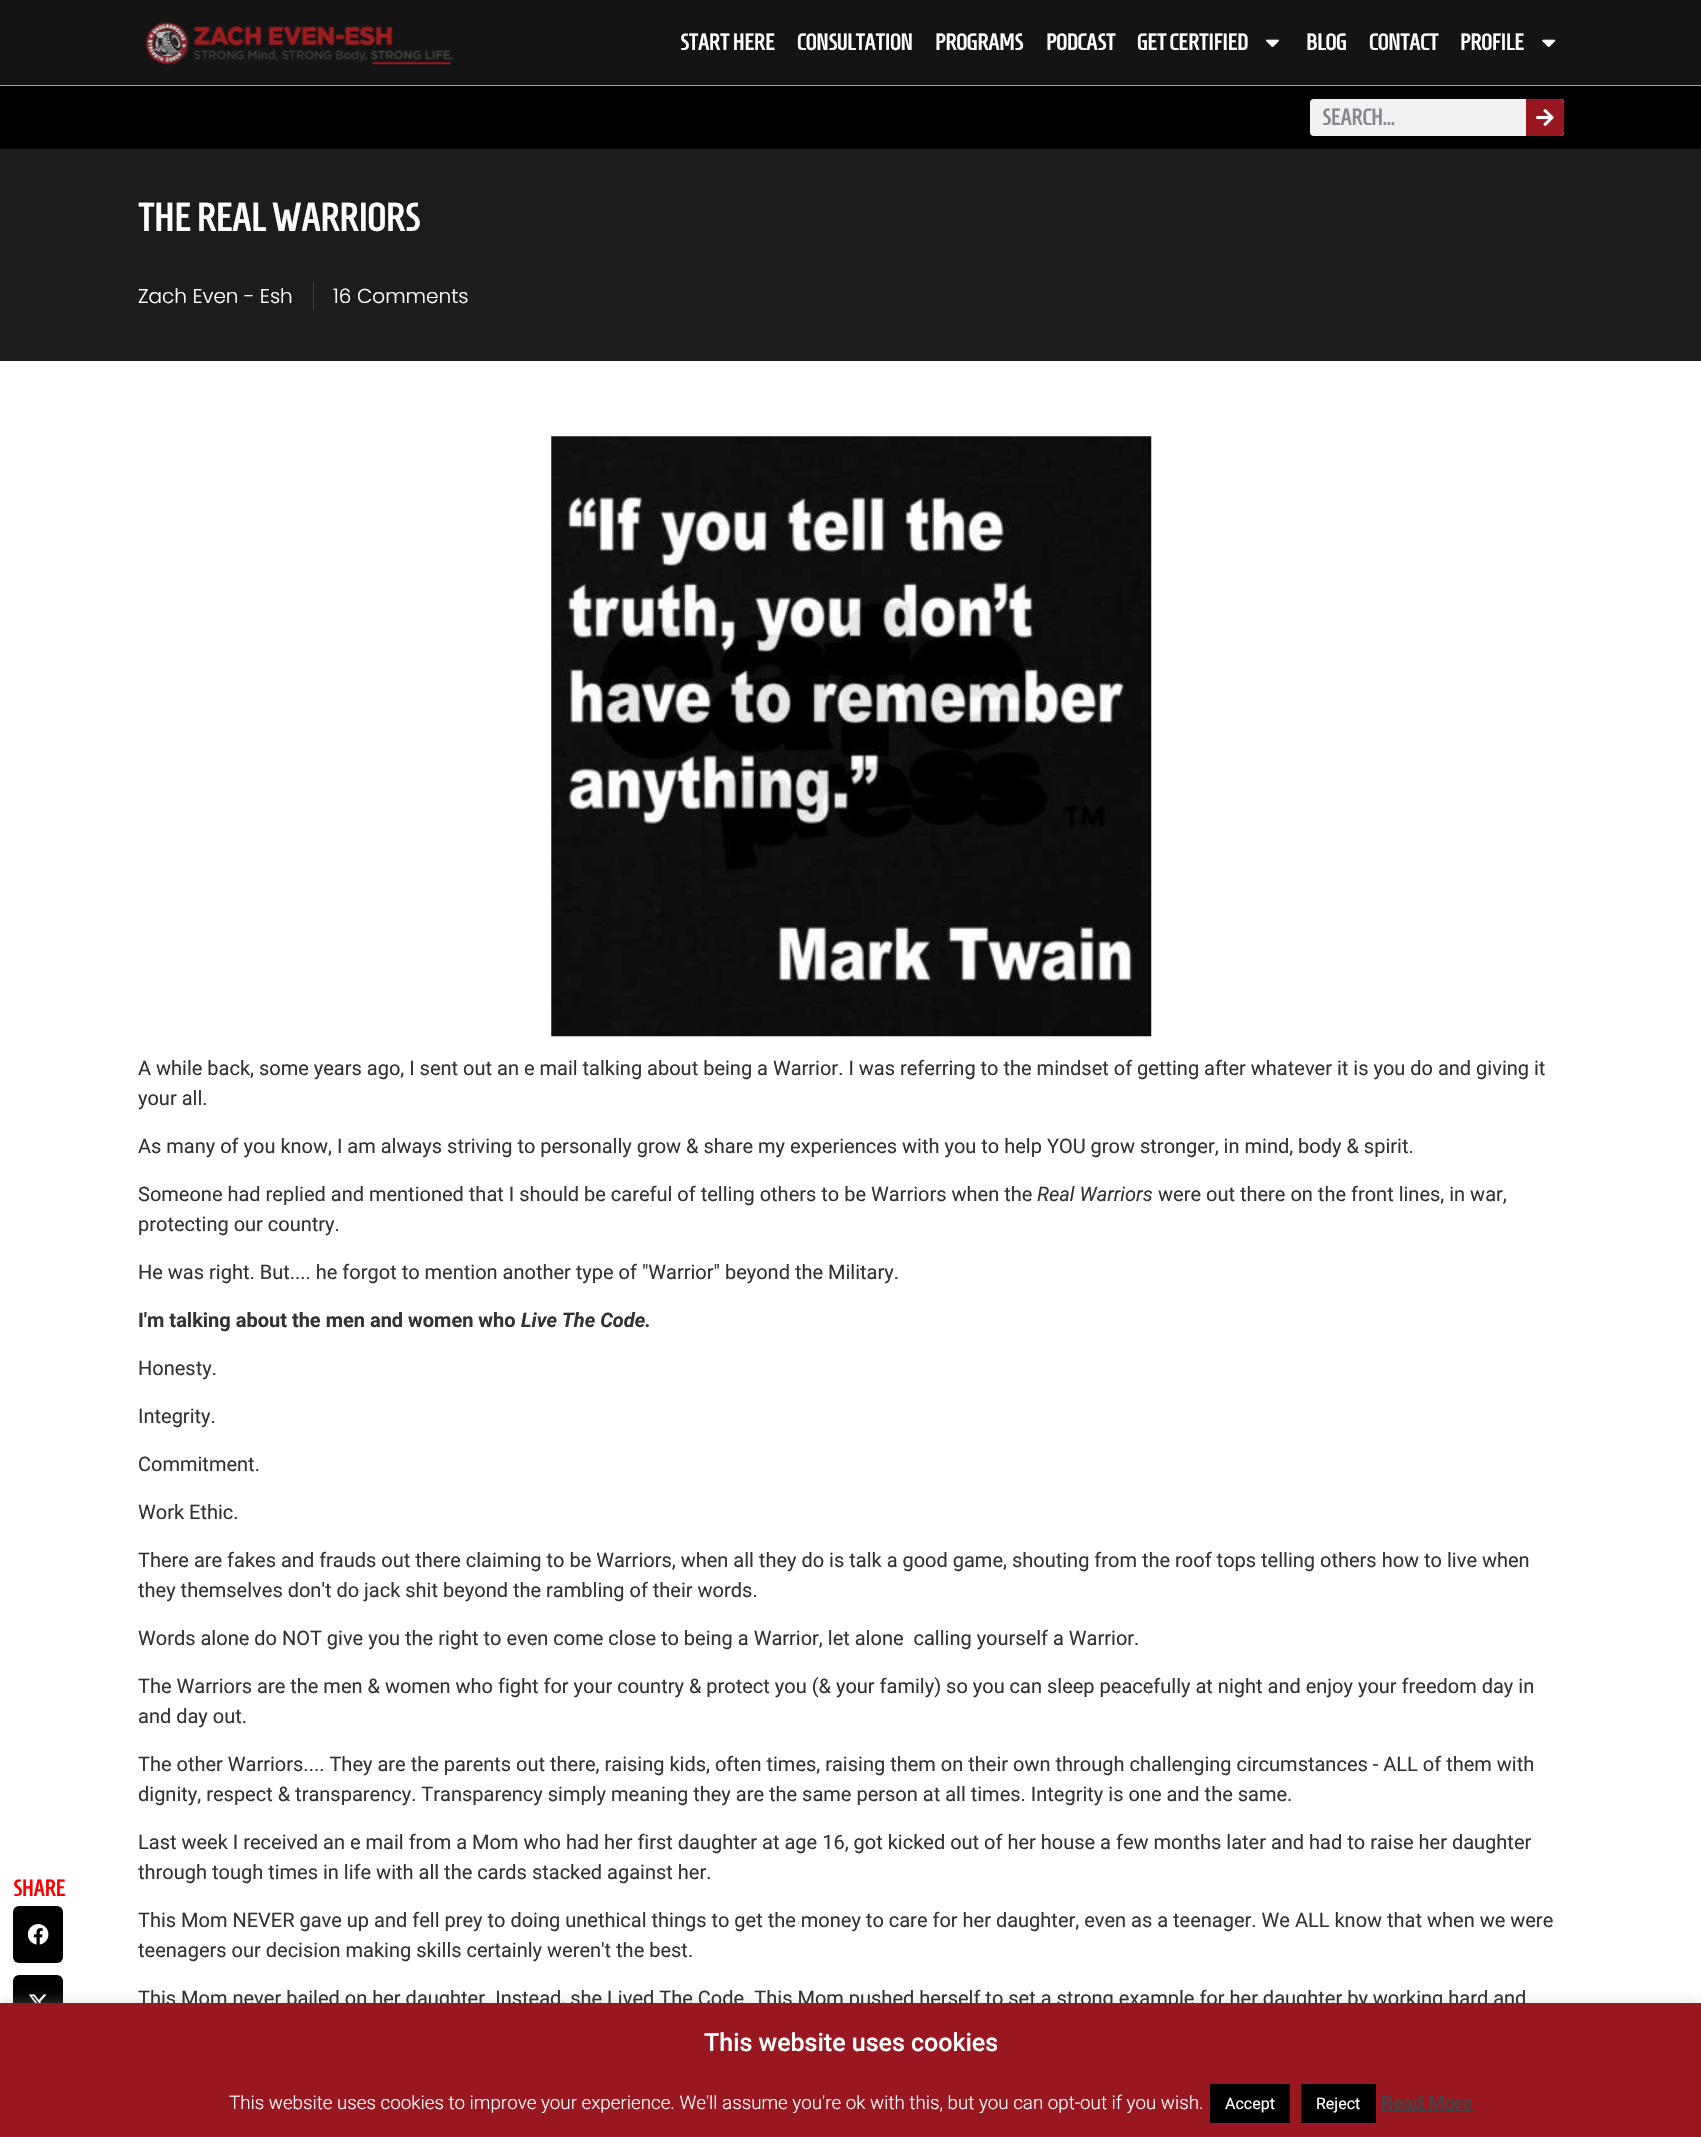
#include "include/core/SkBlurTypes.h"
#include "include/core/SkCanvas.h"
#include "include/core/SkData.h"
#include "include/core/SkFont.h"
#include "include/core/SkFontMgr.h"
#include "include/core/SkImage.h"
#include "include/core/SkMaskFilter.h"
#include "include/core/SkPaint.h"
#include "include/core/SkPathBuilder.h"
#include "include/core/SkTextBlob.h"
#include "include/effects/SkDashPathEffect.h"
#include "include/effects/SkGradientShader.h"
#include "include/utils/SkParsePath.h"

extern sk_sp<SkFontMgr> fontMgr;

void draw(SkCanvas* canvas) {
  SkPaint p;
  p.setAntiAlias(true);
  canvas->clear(SK_ColorWHITE);
  p.setColor(SkColorSetRGB(161, 161, 161));
  canvas->drawRect(SkRect::MakeLTRB(0, 85, 1701, 86), p);
  p.setColor(SkColorSetRGB(20, 20, 20));
  canvas->drawRect(SkRect::MakeLTRB(0, 0, 1701, 85), p);
  canvas->drawImageRect(SkImages::DeferredFromEncodedData(SkData::MakeFromFileName("images/1.png")), SkRect::MakeLTRB(145, 22, 454, 65), SkSamplingOptions());
  canvas->drawImageRect(SkImages::DeferredFromEncodedData(SkData::MakeFromFileName("images/2.png")), SkRect::MakeLTRB(1266, 39, 1279, 47), SkSamplingOptions());
  canvas->drawImageRect(SkImages::DeferredFromEncodedData(SkData::MakeFromFileName("images/3.png")), SkRect::MakeLTRB(1542, 39, 1556, 47), SkSamplingOptions());
  p.setColor(SK_ColorBLACK);
  canvas->drawRect(SkRect::MakeLTRB(0, 86, 1701, 149), p);
  p.setColor(SkColorSetRGB(241, 242, 243));
  canvas->drawRoundRect(SkRect::MakeLTRB(1310, 99, 1564, 136), 4, 4, p);
  p.setColor(SkColorSetRGB(152, 22, 32));
  canvas->drawPath(SkPathBuilder().moveTo(1526, 99).lineTo(1560, 99).cubicTo(1562, 99, 1564, 101, 1564, 103).lineTo(1564, 132).cubicTo(1564, 134, 1562, 136, 1560, 136).lineTo(1526, 136).close().detach(), p);
  canvas->drawImageRect(SkImages::DeferredFromEncodedData(SkData::MakeFromFileName("images/4.png")), SkRect::MakeLTRB(1536, 109, 1554, 126), SkSamplingOptions());
  p.setColor(SkColorSetRGB(28, 28, 28));
  canvas->drawRect(SkRect::MakeLTRB(0, 149, 1701, 361), p);
  p.setColor(SkColorSetRGB(152, 22, 32));
  canvas->drawRect(SkRect::MakeLTRB(313, 281, 314, 311), p);
  p.setColor(SK_ColorBLACK);
  canvas->drawRoundRect(SkRect::MakeLTRB(13, 1906, 63, 1963), 6, 6, p);
  canvas->drawImageRect(SkImages::DeferredFromEncodedData(SkData::MakeFromFileName("images/5.png")), SkRect::MakeLTRB(28, 1924, 49, 1945), SkSamplingOptions());
  canvas->drawRoundRect(SkRect::MakeLTRB(13, 1975, 63, 2031), 6, 6, p);
  canvas->drawImageRect(SkImages::DeferredFromEncodedData(SkData::MakeFromFileName("images/6.png")), SkRect::MakeLTRB(28, 1994, 47, 2003), SkSamplingOptions());
  canvas->drawImageRect(SkImages::DeferredFromEncodedData(SkData::MakeFromFileName("images/7.png")), SkRect::MakeLTRB(551, 436, 1152, 1037), SkSamplingOptions());
  p.setColor(SkColorSetARGB(77, 172, 171, 171));
  p.setMaskFilter(SkMaskFilter::MakeBlur(kNormal_SkBlurStyle, 6));
  canvas->drawRect(SkRect::MakeLTRB(0, 2001, 1701, 2136), p);
  p.setMaskFilter(nullptr);
  SkFont font1(fontMgr->matchFamilyStyle("Homenaje", SkFontStyle::Bold()), 22.5f);
  font1.setSubpixel(true);
  p.setColor(SK_ColorWHITE);
  canvas->drawString("START HERE", 680, 50, font1, p);
  canvas->drawString("CONSULTATION", 797, 50, font1, p);
  canvas->drawString("PROGRAMS", 935, 50, font1, p);
  canvas->drawString("PODCAST", 1046, 50, font1, p);
  canvas->drawString("GET CERTIFIED", 1137, 50, font1, p);
  canvas->drawString("BLOG", 1306, 50, font1, p);
  canvas->drawString("CONTACT", 1369, 50, font1, p);
  canvas->drawString("PROFILE", 1460, 50, font1, p);
  p.setColor(SkColorSetRGB(134, 138, 142));
  canvas->drawString("SEARCH...", 1322, 125, font1, p);
  SkFont font2(fontMgr->matchFamilyStyle("Homenaje", SkFontStyle::Bold()), 38.75f);
  font2.setSubpixel(true);
  p.setColor(SK_ColorWHITE);
  canvas->drawString("THE REAL WARRIORS", 138, 231, font2, p);
  SkFont font3(fontMgr->matchFamilyStyle("Poppins", SkFontStyle(300, SkFontStyle::kNormal_Width, SkFontStyle::kUpright_Slant)), 20);
  font3.setSubpixel(true);
  canvas->drawString("Zach Even - Esh", 138, 303, font3, p);
  canvas->drawString("16 Comments", 333, 303, font3, p);
  p.setColor(SkColorSetRGB(255, 0, 0));
  canvas->drawString("SHARE", 13, 1896, font1, p);
  SkFont font4(fontMgr->matchFamilyStyle("Roboto", SkFontStyle::Normal()), 20);
  font4.setSubpixel(true);
  p.setColor(SkColorSetRGB(51, 51, 51));
  canvas->drawString("A while back, some years ago, I sent out an e mail talking about being a Warrior. I was referring to the mindset of getting after whatever it is you do and giving it", 138, 1075, font4, p);
  canvas->drawString("your all.", 138, 1105, font4, p);
  canvas->drawString("As many of you know, I am always striving to personally grow & share my experiences with you to help YOU grow stronger, in mind, body & spirit.", 138, 1153, font4, p);
  canvas->drawString("Someone had replied and mentioned that I should be careful of telling others to be Warriors when the", 138, 1201, font4, p);
  SkFont font5(fontMgr->matchFamilyStyle("Roboto", SkFontStyle::Italic()), 20);
  font5.setSubpixel(true);
  canvas->drawString("Real Warriors", 1037, 1201, font5, p);
  canvas->drawString("were out there on the front lines, in war,", 1158, 1201, font4, p);
  canvas->drawString("protecting our country.", 138, 1231, font4, p);
  canvas->drawString("He was right. But.... he forgot to mention another type of \"Warrior\" beyond the Military.", 138, 1279, font4, p);
  SkFont font6(fontMgr->matchFamilyStyle("Roboto", SkFontStyle::Bold()), 20);
  font6.setSubpixel(true);
  canvas->drawString("I'm talking about the men and women who", 138, 1327, font6, p);
  SkFont font7(fontMgr->matchFamilyStyle("Roboto", SkFontStyle::BoldItalic()), 20);
  font7.setSubpixel(true);
  canvas->drawString("Live The Code.", 521, 1327, font7, p);
  canvas->drawString("Honesty.", 138, 1375, font4, p);
  canvas->drawString("Integrity.", 138, 1423, font4, p);
  canvas->drawString("Commitment.", 138, 1471, font4, p);
  canvas->drawString("Work Ethic.", 138, 1519, font4, p);
  canvas->drawString("There are fakes and frauds out there claiming to be Warriors, when all they do is talk a good game, shouting from the roof tops telling others how to live when", 138, 1567, font4, p);
  canvas->drawString("they themselves don't do jack shit beyond the rambling of their words.", 138, 1597, font4, p);
  canvas->drawString("Words alone do NOT give you the right to even come close to being a Warrior, let alone  calling yourself a Warrior.", 138, 1645, font4, p);
  canvas->drawString("The Warriors are the men & women who fight for your country & protect you (& your family) so you can sleep peacefully at night and enjoy your freedom day in", 138, 1693, font4, p);
  canvas->drawString("and day out.", 138, 1723, font4, p);
  canvas->drawString("The other Warriors.... They are the parents out there, raising kids, often times, raising them on their own through challenging circumstances - ALL of them with", 138, 1771, font4, p);
  canvas->drawString("dignity, respect & transparency. Transparency simply meaning they are the same person at all times. Integrity is one and the same.", 138, 1801, font4, p);
  canvas->drawString("Last week I received an e mail from a Mom who had her first daughter at age 16, got kicked out of her house a few months later and had to raise her daughter", 138, 1849, font4, p);
  canvas->drawString("through tough times in life with all the cards stacked against her.", 138, 1879, font4, p);
  canvas->drawString("This Mom NEVER gave up and fell prey to doing unethical things to get the money to care for her daughter, even as a teenager. We ALL know that when we were", 138, 1927, font4, p);
  canvas->drawString("teenagers our decision making skills certainly weren't the best.", 138, 1957, font4, p);
  canvas->drawString("This Mom never bailed on her daughter. Instead, she Lived The Code. This Mom pushed herself to set a strong example for her daughter by working hard and", 138, 2005, font4, p);
  p.setColor(SkColorSetRGB(153, 23, 32));
  canvas->drawRect(SkRect::MakeLTRB(0, 2003, 1701, 2137), p);
  SkFont font8(fontMgr->matchFamilyStyle("Roboto", SkFontStyle(500, SkFontStyle::kNormal_Width, SkFontStyle::kUpright_Slant)), 25);
  font8.setSubpixel(true);
  p.setColor(SK_ColorWHITE);
  canvas->drawString("This website uses cookies", 704, 2051, font8, p);
  SkFont font9(fontMgr->matchFamilyStyle("Roboto", SkFontStyle(300, SkFontStyle::kNormal_Width, SkFontStyle::kUpright_Slant)), 18.75f);
  font9.setSubpixel(true);
  canvas->drawString("This website uses cookies to improve your experience. We'll assume you're ok with this, but you can opt-out if you wish.", 229, 2109, font9, p);
  p.setColor(SK_ColorBLACK);
  canvas->drawRect(SkRect::MakeLTRB(1210, 2084, 1290, 2123), p);
  SkFont font10(fontMgr->matchFamilyStyle("Roboto", SkFontStyle::Normal()), 16);
  font10.setSubpixel(true);
  p.setColor(SK_ColorWHITE);
  canvas->drawString("Accept", 1225, 2109, font10, p);
  p.setColor(SK_ColorBLACK);
  canvas->drawRect(SkRect::MakeLTRB(1301, 2084, 1376, 2123), p);
  p.setColor(SK_ColorWHITE);
  canvas->drawString("Reject", 1316, 2109, font10, p);
  SkFont font11(fontMgr->matchFamilyStyle("Roboto", SkFontStyle(600, SkFontStyle::kNormal_Width, SkFontStyle::kUpright_Slant)), 18.75f);
  font11.setSubpixel(true);
  p.setColor(SkColorSetRGB(68, 68, 68));
  canvas->drawString("Read More", 1381, 2109, font11, p);
  canvas->drawRect(SkRect::MakeLTRB(1381, 2110, 1473, 2111), p);
}
